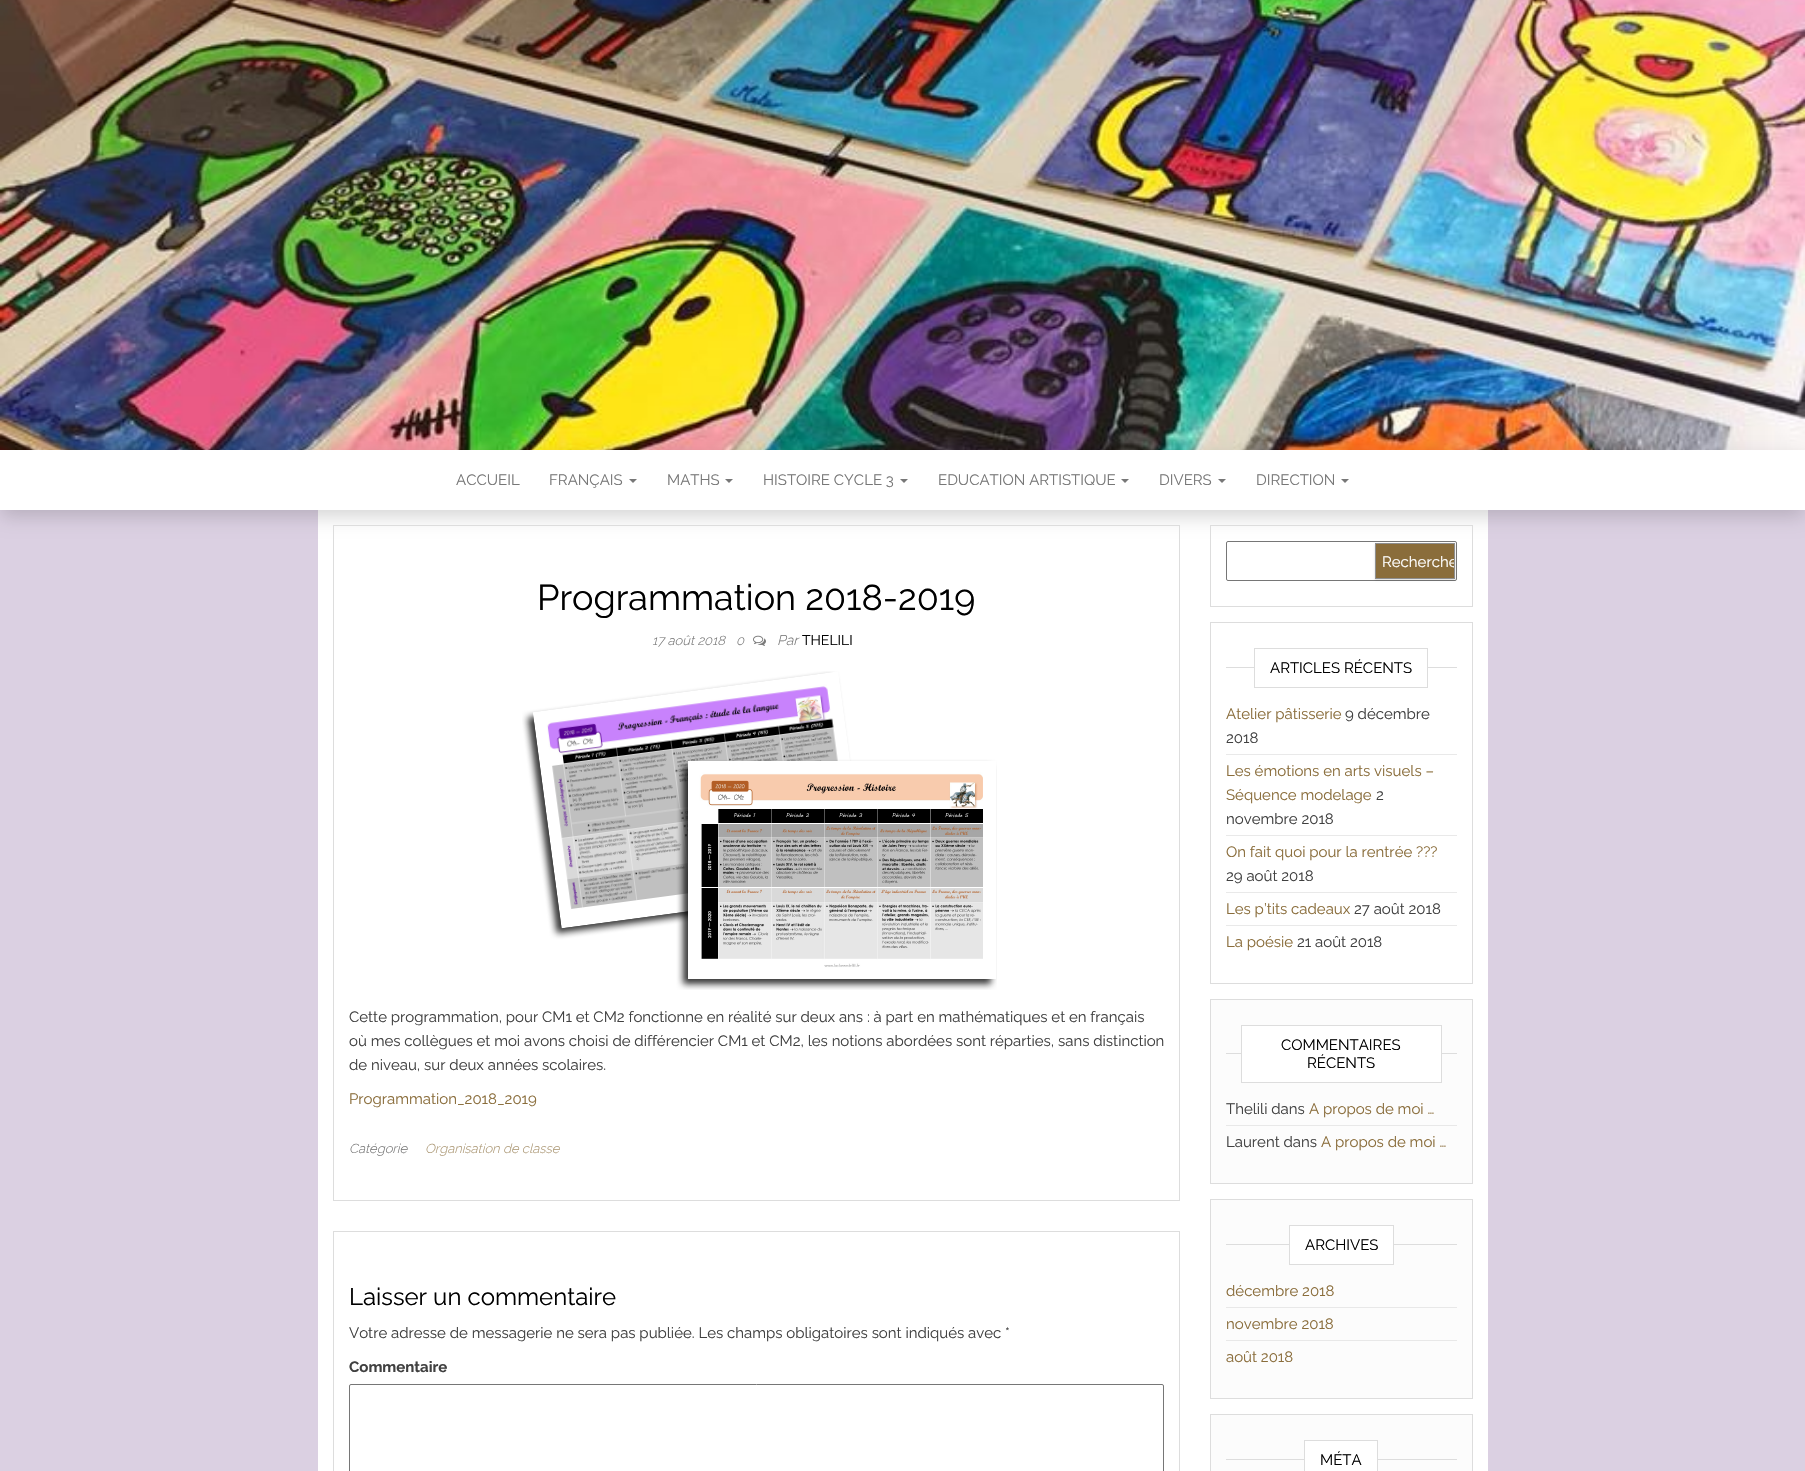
#include "include/core/SkBlurTypes.h"
#include "include/core/SkCanvas.h"
#include "include/core/SkData.h"
#include "include/core/SkFont.h"
#include "include/core/SkFontMgr.h"
#include "include/core/SkImage.h"
#include "include/core/SkMaskFilter.h"
#include "include/core/SkPaint.h"
#include "include/core/SkPathBuilder.h"
#include "include/core/SkTextBlob.h"
#include "include/effects/SkDashPathEffect.h"
#include "include/effects/SkGradientShader.h"
#include "include/utils/SkParsePath.h"

extern sk_sp<SkFontMgr> fontMgr;

void draw(SkCanvas* canvas) {
  SkPaint p;
  p.setAntiAlias(true);
  canvas->clear(SkColorSetRGB(219, 208, 226));
  canvas->drawImageRect(SkImages::DeferredFromEncodedData(SkData::MakeFromFileName("images/1.png")), SkRect::MakeLTRB(0, 0, 1805, 450), SkSamplingOptions());
  p.setColor(SK_ColorWHITE);
  canvas->drawRect(SkRect::MakeLTRB(318, 510, 1488, 1471), p);
  p.setColor(SkColorSetARGB(43, 0, 0, 0));
  p.setMaskFilter(SkMaskFilter::MakeBlur(kNormal_SkBlurStyle, 9.5f));
  canvas->drawRect(SkRect::MakeLTRB(1, 458, 1804, 516), p);
  p.setMaskFilter(nullptr);
  p.setColor(SK_ColorWHITE);
  canvas->drawRect(SkRect::MakeLTRB(0, 450, 1805, 510), p);
  p.setColor(SkColorSetRGB(119, 119, 119));
  canvas->drawPath(SkPathBuilder().moveTo(629, 479).lineTo(637, 479).lineTo(633, 483).close().detach(), p);
  canvas->drawPath(SkPathBuilder().moveTo(725, 479).lineTo(733, 479).lineTo(729, 483).close().detach(), p);
  canvas->drawPath(SkPathBuilder().moveTo(900, 479).lineTo(908, 479).lineTo(904, 483).close().detach(), p);
  canvas->drawPath(SkPathBuilder().moveTo(1121, 479).lineTo(1129, 479).lineTo(1125, 483).close().detach(), p);
  canvas->drawPath(SkPathBuilder().moveTo(1218, 479).lineTo(1226, 479).lineTo(1222, 483).close().detach(), p);
  canvas->drawPath(SkPathBuilder().moveTo(1341, 479).lineTo(1349, 479).lineTo(1345, 483).close().detach(), p);
  p.setStyle(SkPaint::kStroke_Style);
  p.setStrokeWidth(1);
  p.setColor(SkColorSetRGB(221, 221, 221));
  canvas->drawRect(SkRect::MakeLTRB(333.5f, 525.5f, 1179.5f, 1200.5f), p);
  canvas->drawImageRect(SkImages::DeferredFromEncodedData(SkData::MakeFromFileName("images/2.png")), SkRect::MakeLTRB(753, 635, 766, 646), SkSamplingOptions());
  canvas->drawImageRect(SkImages::DeferredFromEncodedData(SkData::MakeFromFileName("images/3.png")), SkRect::MakeLTRB(522, 671, 997, 990), SkSamplingOptions());
  canvas->drawRect(SkRect::MakeLTRB(333.5f, 1231.5f, 1179.5f, 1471.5f), p);
  p.setColor(SkColorSetRGB(118, 118, 118));
  canvas->drawRoundRect(SkRect::MakeLTRB(349.5f, 1384.5f, 1163.5f, 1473.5f), 1.5f, 1.5f, p);
  p.setColor(SkColorSetRGB(221, 221, 221));
  canvas->drawRect(SkRect::MakeLTRB(1210.5f, 525.5f, 1472.5f, 606.5f), p);
  p.setColor(SkColorSetRGB(118, 118, 118));
  canvas->drawRoundRect(SkRect::MakeLTRB(1226.5f, 541.5f, 1456.5f, 580.5f), 1.5f, 1.5f, p);
  p.setStyle(SkPaint::kFill_Style);
  p.setColor(SkColorSetARGB(38, 0, 0, 0));
  p.setMaskFilter(SkMaskFilter::MakeBlur(kNormal_SkBlurStyle, 1));
  canvas->drawRect(SkRect::MakeLTRB(1375, 544, 1455, 580), p);
  p.setMaskFilter(nullptr);
  p.setColor(SkColorSetRGB(138, 109, 59));
  canvas->drawRect(SkRect::MakeLTRB(1375.5f, 543.5f, 1454.5f, 578.5f), p);
  p.setStyle(SkPaint::kStroke_Style);
  p.setColor(SkColorSetRGB(142, 142, 142));
  canvas->drawRect(SkRect::MakeLTRB(1375.5f, 543.5f, 1454.5f, 578.5f), p);
  p.setColor(SkColorSetRGB(221, 221, 221));
  canvas->drawRect(SkRect::MakeLTRB(1210.5f, 622.5f, 1472.5f, 983.5f), p);
  p.setStyle(SkPaint::kFill_Style);
  canvas->drawRect(SkRect::MakeLTRB(1226, 667, 1457, 668), p);
  p.setColor(SK_ColorWHITE);
  canvas->drawRect(SkRect::MakeLTRB(1255, 667, 1427, 668), p);
  p.setStyle(SkPaint::kStroke_Style);
  p.setColor(SkColorSetRGB(221, 221, 221));
  canvas->drawRect(SkRect::MakeLTRB(1254.5f, 648.5f, 1427.5f, 687.5f), p);
  p.setStyle(SkPaint::kFill_Style);
  p.setColor(SkColorSetRGB(233, 233, 233));
  canvas->drawRect(SkRect::MakeLTRB(1226, 754, 1457, 755), p);
  canvas->drawRect(SkRect::MakeLTRB(1226, 835, 1457, 836), p);
  canvas->drawRect(SkRect::MakeLTRB(1226, 892, 1457, 893), p);
  canvas->drawRect(SkRect::MakeLTRB(1226, 925, 1457, 926), p);
  p.setColor(SkColorSetRGB(252, 252, 252));
  canvas->drawRect(SkRect::MakeLTRB(1210.5f, 999.5f, 1472.5f, 1183.5f), p);
  p.setStyle(SkPaint::kStroke_Style);
  p.setColor(SkColorSetRGB(221, 221, 221));
  canvas->drawRect(SkRect::MakeLTRB(1210.5f, 999.5f, 1472.5f, 1183.5f), p);
  p.setStyle(SkPaint::kFill_Style);
  canvas->drawRect(SkRect::MakeLTRB(1226, 1053, 1457, 1054), p);
  p.setColor(SK_ColorWHITE);
  canvas->drawRect(SkRect::MakeLTRB(1241.5f, 1025.5f, 1441.5f, 1082.5f), p);
  p.setStyle(SkPaint::kStroke_Style);
  p.setColor(SkColorSetRGB(221, 221, 221));
  canvas->drawRect(SkRect::MakeLTRB(1241.5f, 1025.5f, 1441.5f, 1082.5f), p);
  p.setStyle(SkPaint::kFill_Style);
  p.setColor(SkColorSetRGB(232, 232, 232));
  canvas->drawRect(SkRect::MakeLTRB(1226, 1125, 1457, 1126), p);
  p.setColor(SkColorSetRGB(252, 252, 252));
  canvas->drawRect(SkRect::MakeLTRB(1210.5f, 1199.5f, 1472.5f, 1398.5f), p);
  p.setStyle(SkPaint::kStroke_Style);
  p.setColor(SkColorSetRGB(221, 221, 221));
  canvas->drawRect(SkRect::MakeLTRB(1210.5f, 1199.5f, 1472.5f, 1398.5f), p);
  p.setStyle(SkPaint::kFill_Style);
  canvas->drawRect(SkRect::MakeLTRB(1226, 1244, 1457, 1245), p);
  p.setColor(SK_ColorWHITE);
  canvas->drawRect(SkRect::MakeLTRB(1289.5f, 1225.5f, 1393.5f, 1264.5f), p);
  p.setStyle(SkPaint::kStroke_Style);
  p.setColor(SkColorSetRGB(221, 221, 221));
  canvas->drawRect(SkRect::MakeLTRB(1289.5f, 1225.5f, 1393.5f, 1264.5f), p);
  p.setStyle(SkPaint::kFill_Style);
  p.setColor(SkColorSetRGB(232, 232, 232));
  canvas->drawRect(SkRect::MakeLTRB(1226, 1307, 1457, 1308), p);
  canvas->drawRect(SkRect::MakeLTRB(1226, 1340, 1457, 1341), p);
  p.setColor(SkColorSetRGB(252, 252, 252));
  canvas->drawRect(SkRect::MakeLTRB(1210.5f, 1414.5f, 1472.5f, 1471.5f), p);
  p.setStyle(SkPaint::kStroke_Style);
  p.setColor(SkColorSetRGB(221, 221, 221));
  canvas->drawRect(SkRect::MakeLTRB(1210.5f, 1414.5f, 1472.5f, 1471.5f), p);
  p.setStyle(SkPaint::kFill_Style);
  canvas->drawRect(SkRect::MakeLTRB(1226, 1459, 1457, 1460), p);
  p.setColor(SK_ColorWHITE);
  canvas->drawRect(SkRect::MakeLTRB(1304.5f, 1440.5f, 1377.5f, 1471.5f), p);
  p.setStyle(SkPaint::kStroke_Style);
  p.setColor(SkColorSetRGB(221, 221, 221));
  canvas->drawRect(SkRect::MakeLTRB(1304.5f, 1440.5f, 1377.5f, 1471.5f), p);
  SkFont font1(fontMgr->matchFamilyStyle("Raleway", SkFontStyle::Normal()), 15);
  font1.setSubpixel(true);
  p.setStyle(SkPaint::kFill_Style);
  p.setColor(SkColorSetRGB(119, 119, 119));
  canvas->drawString("ACCUEIL", 456, 485, font1, p);
  canvas->drawString("FRANÇAIS", 549, 485, font1, p);
  canvas->drawString("MATHS", 667, 485, font1, p);
  canvas->drawString("HISTOIRE CYCLE 3", 763, 485, font1, p);
  canvas->drawString("EDUCATION ARTISTIQUE", 938, 485, font1, p);
  canvas->drawString("DIVERS", 1159, 485, font1, p);
  canvas->drawString("DIRECTION", 1256, 485, font1, p);
  SkFont font2(fontMgr->matchFamilyStyle("Raleway", SkFontStyle::Normal()), 36);
  font2.setSubpixel(true);
  p.setColor(SK_ColorBLACK);
  canvas->drawString("Programmation 2018-2019", 537, 610, font2, p);
  SkFont font3(fontMgr->matchFamilyStyle("Raleway", SkFontStyle(300, SkFontStyle::kNormal_Width, SkFontStyle::kItalic_Slant)), 13);
  font3.setSubpixel(true);
  p.setColor(SkColorSetRGB(119, 119, 119));
  canvas->drawString("17 août 2018", 652, 645, font3, p);
  canvas->drawString("0", 736, 645, font3, p);
  SkFont font4(fontMgr->matchFamilyStyle("Raleway", SkFontStyle(300, SkFontStyle::kNormal_Width, SkFontStyle::kItalic_Slant)), 14);
  font4.setSubpixel(true);
  canvas->drawString("Par", 777, 645, font4, p);
  SkFont font5(fontMgr->matchFamilyStyle("Raleway", SkFontStyle::Normal()), 14);
  font5.setSubpixel(true);
  p.setColor(SK_ColorBLACK);
  canvas->drawString("THELILI", 802, 645, font5, p);
  p.setColor(SkColorSetRGB(64, 64, 64));
  canvas->drawString("Cette programmation, pour CM1 et CM2 fonctionne en réalité sur deux ans : à part en mathématiques et en français", 349, 1022, font1, p);
  canvas->drawString("où mes collègues et moi avons choisi de différencier CM1 et CM2, les notions abordées sont réparties, sans distinction", 349, 1046, font1, p);
  canvas->drawString("de niveau, sur deux années scolaires.", 349, 1070, font1, p);
  p.setColor(SkColorSetRGB(138, 109, 59));
  canvas->drawString("Programmation_2018_2019", 349, 1104, font1, p);
  p.setColor(SkColorSetRGB(119, 119, 119));
  canvas->drawString("Catégorie", 349, 1153, font3, p);
  p.setColor(SkColorSetRGB(172, 152, 117));
  canvas->drawString("Organisation de classe", 425, 1153, font3, p);
  SkFont font6(fontMgr->matchFamilyStyle("Raleway", SkFontStyle::Normal()), 24);
  font6.setSubpixel(true);
  p.setColor(SK_ColorBLACK);
  canvas->drawString("Laisser un commentaire", 349, 1305, font6, p);
  p.setColor(SkColorSetRGB(64, 64, 64));
  canvas->drawString("Votre adresse de messagerie ne sera pas publiée. Les champs obligatoires sont indiqués avec *", 349, 1338, font1, p);
  SkFont font7(fontMgr->matchFamilyStyle("Raleway", SkFontStyle::Bold()), 15);
  font7.setSubpixel(true);
  canvas->drawString("Commentaire", 349, 1372, font7, p);
  canvas->save();
  canvas->clipRect(SkRect::MakeLTRB(1376, 544, 1454, 578));
  p.setColor(SK_ColorWHITE);
  canvas->drawString("Recherche", 1382, 567, font1, p);
  canvas->restore();
  p.setColor(SK_ColorBLACK);
  canvas->drawString("ARTICLES RÉCENTS", 1270, 673, font1, p);
  p.setColor(SkColorSetRGB(138, 109, 59));
  canvas->drawString("Atelier pâtisserie", 1226, 719, font1, p);
  p.setColor(SkColorSetRGB(64, 64, 64));
  canvas->drawString("9 décembre", 1345, 719, font1, p);
  canvas->drawString("2018", 1226, 743, font1, p);
  p.setColor(SkColorSetRGB(138, 109, 59));
  canvas->drawString("Les émotions en arts visuels –", 1226, 776, font1, p);
  canvas->drawString("Séquence modelage", 1226, 800, font1, p);
  p.setColor(SkColorSetRGB(64, 64, 64));
  canvas->drawString("2", 1376, 800, font1, p);
  canvas->drawString("novembre 2018", 1226, 824, font1, p);
  p.setColor(SkColorSetRGB(138, 109, 59));
  canvas->drawString("On fait quoi pour la rentrée ?\077?", 1226, 857, font1, p);
  p.setColor(SkColorSetRGB(64, 64, 64));
  canvas->drawString("29 août 2018", 1226, 881, font1, p);
  p.setColor(SkColorSetRGB(138, 109, 59));
  canvas->drawString("Les p’tits cadeaux", 1226, 914, font1, p);
  p.setColor(SkColorSetRGB(64, 64, 64));
  canvas->drawString("27 août 2018", 1354, 914, font1, p);
  p.setColor(SkColorSetRGB(138, 109, 59));
  canvas->drawString("La poésie", 1226, 947, font1, p);
  p.setColor(SkColorSetRGB(64, 64, 64));
  canvas->drawString("21 août 2018", 1297, 947, font1, p);
  p.setColor(SK_ColorBLACK);
  canvas->drawString("COMMENTAIRES", 1281, 1050, font1, p);
  canvas->drawString("RÉCENTS", 1307, 1068, font1, p);
  p.setColor(SkColorSetRGB(64, 64, 64));
  canvas->drawString("Thelili dans", 1226, 1114, font1, p);
  p.setColor(SkColorSetRGB(138, 109, 59));
  canvas->drawString("A propos de moi …", 1309, 1114, font1, p);
  p.setColor(SkColorSetRGB(64, 64, 64));
  canvas->drawString("Laurent dans", 1226, 1147, font1, p);
  p.setColor(SkColorSetRGB(138, 109, 59));
  canvas->drawString("A propos de moi …", 1321, 1147, font1, p);
  p.setColor(SK_ColorBLACK);
  canvas->drawString("ARCHIVES", 1305, 1250, font1, p);
  p.setColor(SkColorSetRGB(138, 109, 59));
  canvas->drawString("décembre 2018", 1226, 1296, font1, p);
  canvas->drawString("novembre 2018", 1226, 1329, font1, p);
  canvas->drawString("août 2018", 1226, 1362, font1, p);
  p.setColor(SK_ColorBLACK);
  canvas->drawString("MÉTA", 1320, 1465, font1, p);
}
